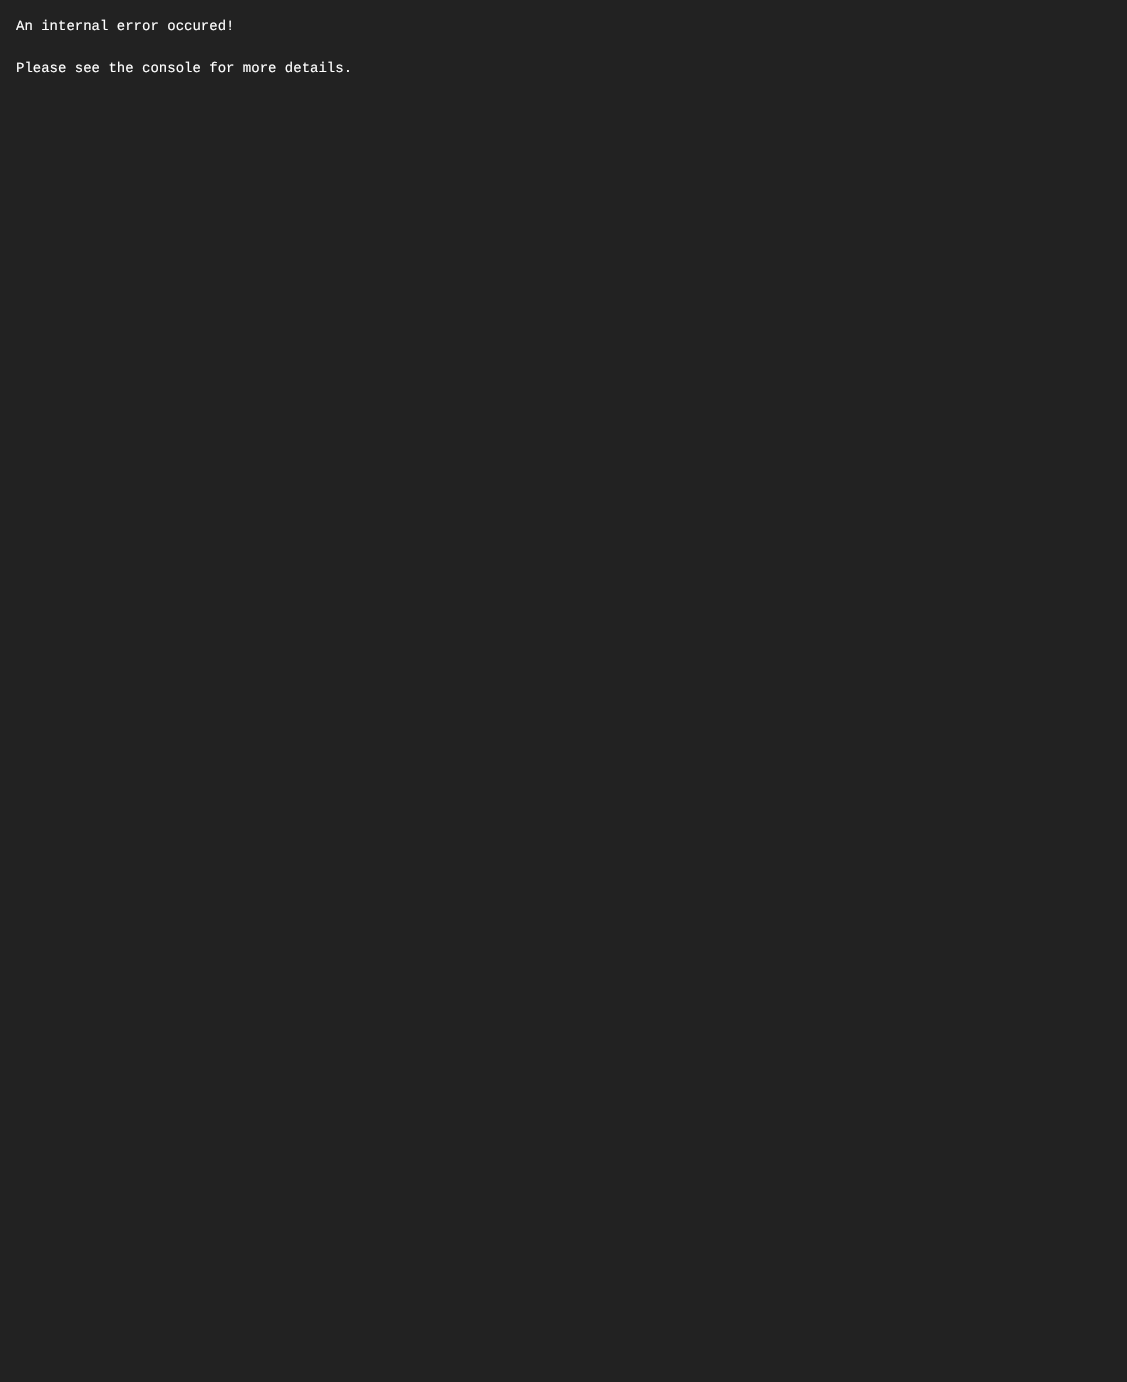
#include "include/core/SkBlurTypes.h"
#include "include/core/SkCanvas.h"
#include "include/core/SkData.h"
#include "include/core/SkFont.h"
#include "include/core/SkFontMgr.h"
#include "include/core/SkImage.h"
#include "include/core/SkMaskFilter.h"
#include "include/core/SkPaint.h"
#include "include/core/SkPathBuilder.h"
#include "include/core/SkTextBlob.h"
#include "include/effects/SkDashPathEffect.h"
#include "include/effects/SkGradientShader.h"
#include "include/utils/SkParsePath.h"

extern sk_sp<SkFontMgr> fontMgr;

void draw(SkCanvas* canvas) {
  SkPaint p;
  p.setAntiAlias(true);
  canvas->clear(SkColorSetRGB(34, 34, 34));
  SkFont font1(fontMgr->matchFamilyStyle("Liberation Mono", SkFontStyle::Normal()), 14);
  font1.setSubpixel(true);
  p.setColor(SK_ColorWHITE);
  canvas->drawString("An internal error occured!", 16, 30, font1, p);
  canvas->drawString("Please see the console for more details.", 16, 72, font1, p);
}
